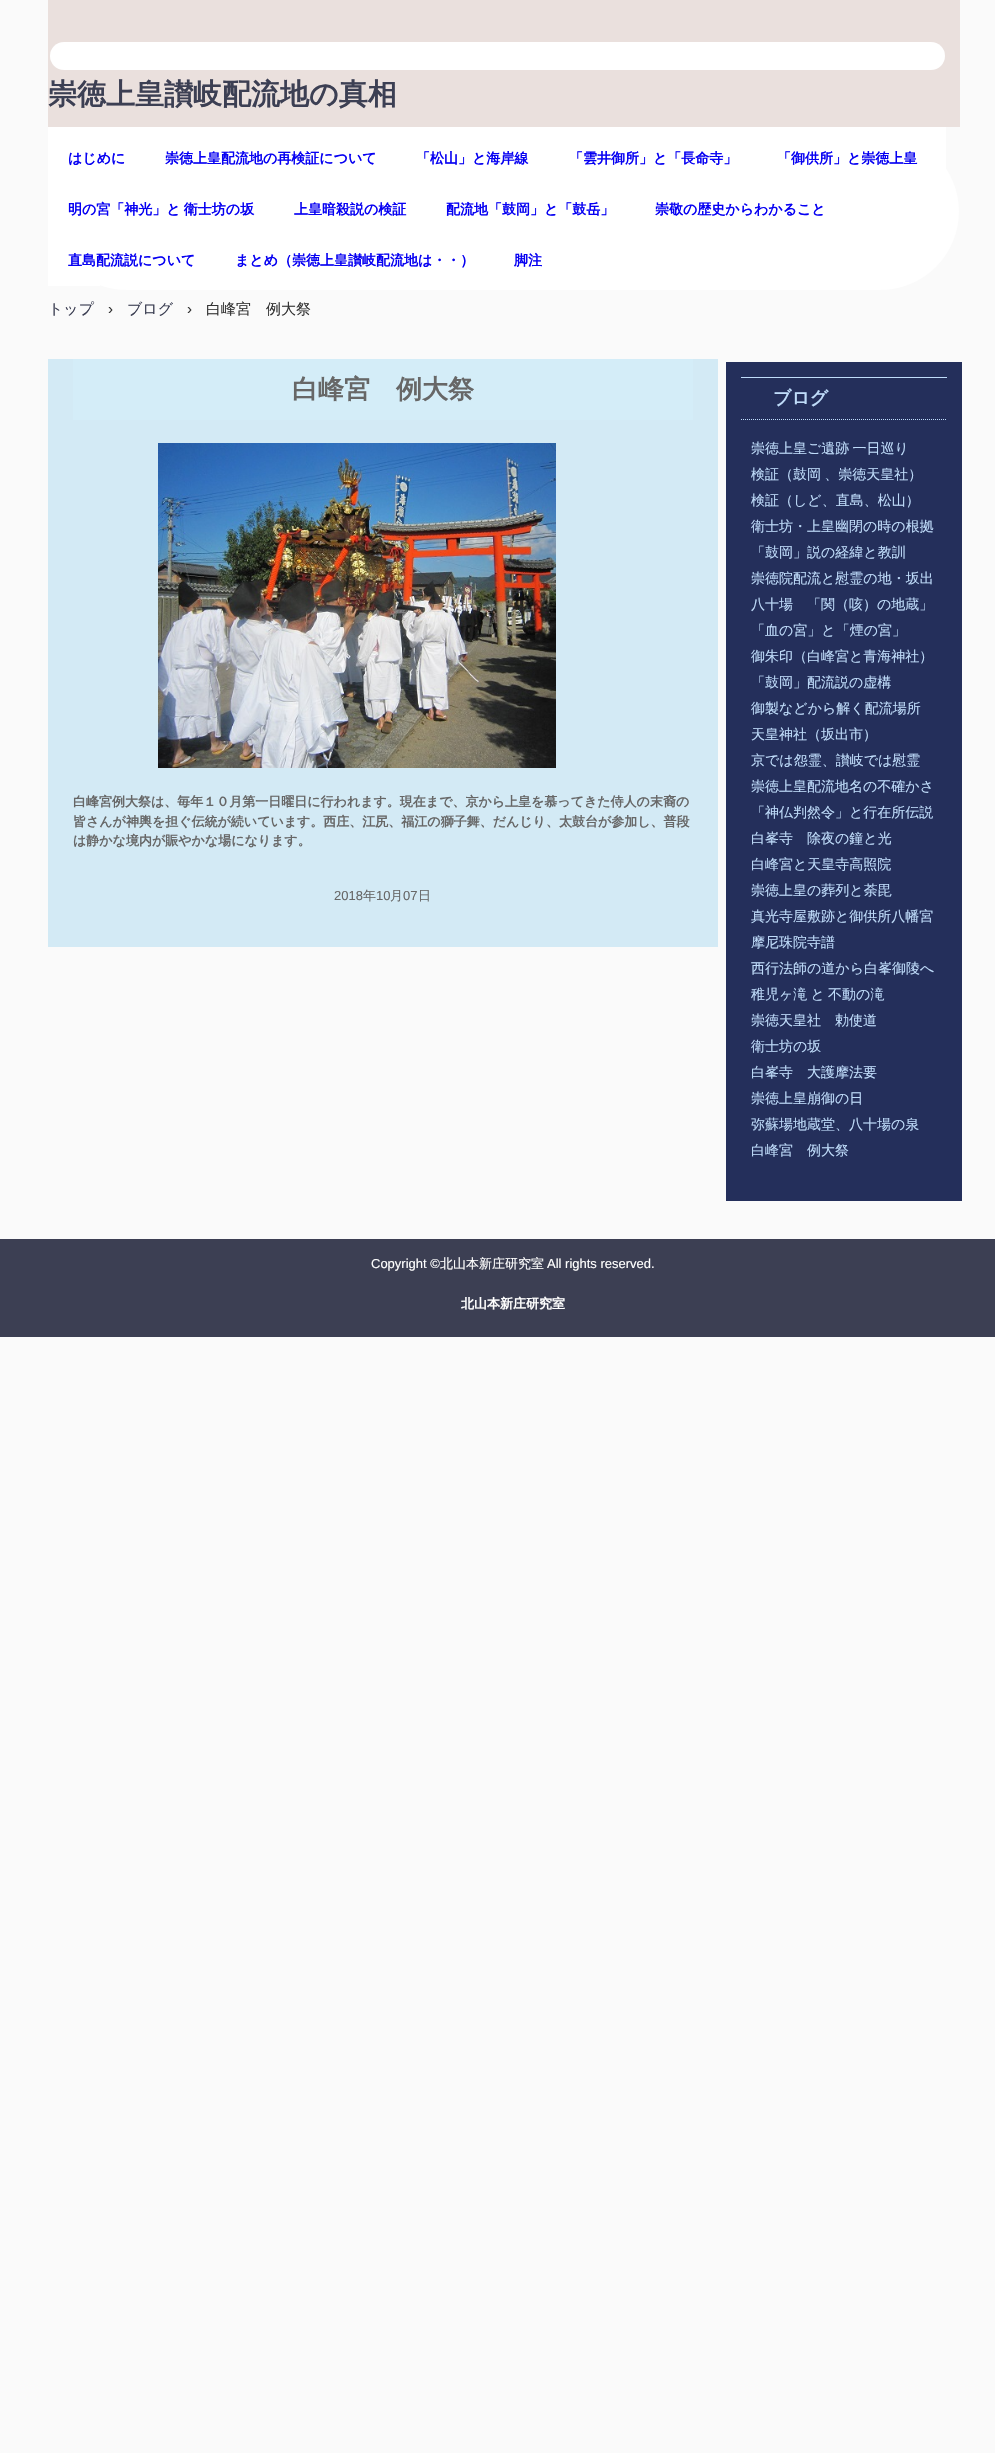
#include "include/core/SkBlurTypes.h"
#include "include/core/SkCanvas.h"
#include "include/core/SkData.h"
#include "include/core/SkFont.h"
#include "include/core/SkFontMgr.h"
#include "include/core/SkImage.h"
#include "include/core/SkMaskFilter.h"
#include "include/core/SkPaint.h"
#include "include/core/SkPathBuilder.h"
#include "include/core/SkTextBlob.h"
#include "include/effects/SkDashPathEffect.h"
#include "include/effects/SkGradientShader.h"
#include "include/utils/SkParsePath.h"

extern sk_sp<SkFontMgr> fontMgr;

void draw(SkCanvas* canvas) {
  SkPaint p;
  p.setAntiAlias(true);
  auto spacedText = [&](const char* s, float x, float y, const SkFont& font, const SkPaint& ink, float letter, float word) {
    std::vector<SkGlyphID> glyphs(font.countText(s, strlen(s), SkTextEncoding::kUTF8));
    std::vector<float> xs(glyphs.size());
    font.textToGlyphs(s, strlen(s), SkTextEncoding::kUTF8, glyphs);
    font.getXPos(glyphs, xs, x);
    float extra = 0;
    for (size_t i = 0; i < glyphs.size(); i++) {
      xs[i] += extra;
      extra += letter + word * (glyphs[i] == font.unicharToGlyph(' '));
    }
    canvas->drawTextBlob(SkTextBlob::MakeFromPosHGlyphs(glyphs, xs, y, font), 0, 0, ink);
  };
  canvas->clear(SkColorSetRGB(250, 250, 250));
  p.setColor(SK_ColorWHITE);
  canvas->drawRect(SkRect::MakeLTRB(48, 127, 946, 235), p);
  p.setColor(SkColorSetRGB(234, 224, 221));
  canvas->drawRect(SkRect::MakeLTRB(48, 0, 960, 127), p);
  p.setColor(SK_ColorWHITE);
  canvas->drawRoundRect(SkRect::MakeLTRB(50, 42, 945, 70), 14, 14, p);
  canvas->drawRoundRect(SkRect::MakeLTRB(48, 133, 959, 290), 78.5f, 78.5f, p);
  canvas->drawRect(SkRect::MakeLTRB(48, 235, 100, 286), p);
  p.setColor(SkColorSetRGB(211, 234, 245));
  canvas->drawRect(SkRect::MakeLTRB(48, 359, 718, 947), p);
  p.setColor(SkColorSetRGB(212, 237, 248));
  canvas->drawRect(SkRect::MakeLTRB(73, 359, 693, 420), p);
  canvas->drawImageRect(SkImages::DeferredFromEncodedData(SkData::MakeFromFileName("images/1.png")), SkRect::MakeLTRB(158, 443, 556, 768), SkSamplingOptions());
  p.setColor(SkColorSetRGB(36, 47, 91));
  canvas->drawRect(SkRect::MakeLTRB(726, 362, 962, 1201), p);
  p.setColor(SkColorSetRGB(191, 220, 250));
  canvas->drawRect(SkRect::MakeLTRB(741, 377, 947, 378), p);
  p.setStyle(SkPaint::kStroke_Style);
  p.setStrokeWidth(1);
  p.setPathEffect(SkDashPathEffect::Make({{1, 1}}, 0));
  canvas->drawPath(SkPathBuilder().moveTo(741, 419.5f).lineTo(947, 419.5f).detach(), p);
  p.setPathEffect(nullptr);
  p.setStyle(SkPaint::kFill_Style);
  p.setColor(SkColorSetRGB(60, 63, 83));
  canvas->drawRect(SkRect::MakeLTRB(0, 1239, 995, 1337), p);
  SkFont font1(fontMgr->matchFamilyStyle("WenQuanYi Zen Hei", SkFontStyle::Bold()), 29);
  font1.setSubpixel(true);
  canvas->drawString("崇徳上皇讃岐配流地の真相", 48, 104, font1, p);
  SkFont font2(fontMgr->matchFamilyStyle("WenQuanYi Zen Hei", SkFontStyle::Bold()), 14);
  font2.setSubpixel(true);
  p.setColor(SkColorSetRGB(6, 0, 242));
  canvas->drawString("はじめに", 68, 163, font2, p);
  canvas->drawString("崇徳上皇配流地の再検証について", 165, 163, font2, p);
  canvas->drawString("「松山」と海岸線", 416, 163, font2, p);
  canvas->drawString("「雲井御所」と「長命寺」", 569, 163, font2, p);
  canvas->drawString("「御供所」と崇徳上皇", 777, 163, font2, p);
  spacedText("明の宮「神光」と 衛士坊の坂", 68, 214, font2, p, 0, -1);
  canvas->drawString("上皇暗殺説の検証", 294, 214, font2, p);
  canvas->drawString("配流地「鼓岡」と「鼓岳」", 446, 214, font2, p);
  canvas->drawString("崇敬の歴史からわかること", 655, 214, font2, p);
  canvas->drawString("直島配流説について", 68, 265, font2, p);
  canvas->drawString("まとめ（崇徳上皇讃岐配流地は・・）", 235, 265, font2, p);
  canvas->drawString("脚注", 514, 265, font2, p);
  SkFont font3(fontMgr->matchFamilyStyle("WenQuanYi Zen Hei", SkFontStyle(500, SkFontStyle::kNormal_Width, SkFontStyle::kUpright_Slant)), 15);
  font3.setSubpixel(true);
  p.setColor(SkColorSetRGB(60, 63, 83));
  canvas->drawString("トップ", 48, 314, font3, p);
  SkFont font4(fontMgr->matchFamilyStyle("Liberation Sans", SkFontStyle::Normal()), 15);
  font4.setSubpixel(true);
  p.setColor(SkColorSetRGB(51, 51, 51));
  canvas->drawString("›", 108, 314, font4, p);
  p.setColor(SkColorSetRGB(60, 63, 83));
  canvas->drawString("ブログ", 127, 314, font3, p);
  p.setColor(SkColorSetRGB(51, 51, 51));
  canvas->drawString("›", 187, 314, font4, p);
  canvas->drawString("白峰宮　例大祭", 206, 314, font3, p);
  SkFont font5(fontMgr->matchFamilyStyle("WenQuanYi Zen Hei", SkFontStyle::Bold()), 26);
  font5.setSubpixel(true);
  p.setColor(SkColorSetRGB(103, 103, 103));
  canvas->drawString("白峰宮　例大祭", 292, 398, font5, p);
  SkFont font6(fontMgr->matchFamilyStyle("WenQuanYi Zen Hei", SkFontStyle::Bold()), 13);
  font6.setSubpixel(true);
  canvas->drawString("白峰宮例大祭は、毎年１０月第一日曜日に行われます。現在まで、京から上皇を慕ってきた侍人の末裔の", 73, 806, font6, p);
  canvas->drawString("皆さんが神輿を担ぐ伝統が続いています。西庄、江尻、福江の獅子舞、だんじり、太鼓台が参加し、普段", 73, 826, font6, p);
  canvas->drawString("は静かな境内が賑やかな場になります。", 73, 845, font6, p);
  SkFont font7(fontMgr->matchFamilyStyle("Liberation Sans", SkFontStyle::Normal()), 13);
  font7.setSubpixel(true);
  canvas->drawString("2018", 334, 900, font7, p);
  SkFont font8(fontMgr->matchFamilyStyle("WenQuanYi Zen Hei", SkFontStyle(500, SkFontStyle::kNormal_Width, SkFontStyle::kUpright_Slant)), 13);
  font8.setSubpixel(true);
  canvas->drawString("年", 363, 900, font8, p);
  canvas->drawString("10", 376, 900, font7, p);
  canvas->drawString("月", 390, 900, font8, p);
  canvas->drawString("07", 403, 900, font7, p);
  canvas->drawString("日", 418, 900, font8, p);
  SkFont font9(fontMgr->matchFamilyStyle("WenQuanYi Zen Hei", SkFontStyle::Bold()), 18);
  font9.setSubpixel(true);
  p.setColor(SkColorSetRGB(191, 220, 250));
  canvas->drawString("ブログ", 773, 404, font9, p);
  SkFont font10(fontMgr->matchFamilyStyle("WenQuanYi Zen Hei", SkFontStyle(500, SkFontStyle::kNormal_Width, SkFontStyle::kUpright_Slant)), 14);
  font10.setSubpixel(true);
  spacedText("崇徳上皇ご遺跡 一日巡り", 751, 453, font10, p, 0, -1);
  spacedText("検証（鼓岡 、崇徳天皇社）", 751, 479, font10, p, 0, -1);
  canvas->drawString("検証（しど、直島、松山）", 751, 505, font10, p);
  canvas->drawString("衛士坊・上皇幽閉の時の根拠", 751, 531, font10, p);
  canvas->drawString("「鼓岡」説の経緯と教訓", 751, 557, font10, p);
  canvas->drawString("崇徳院配流と慰霊の地・坂出", 751, 583, font10, p);
  canvas->drawString("八十場　「関（咳）の地蔵」", 751, 609, font10, p);
  canvas->drawString("「血の宮」と「煙の宮」", 751, 635, font10, p);
  canvas->drawString("御朱印（白峰宮と青海神社）", 751, 661, font10, p);
  canvas->drawString("「鼓岡」配流説の虚構", 751, 687, font10, p);
  canvas->drawString("御製などから解く配流場所", 751, 713, font10, p);
  canvas->drawString("天皇神社（坂出市）", 751, 739, font10, p);
  canvas->drawString("京では怨霊、讃岐では慰霊", 751, 765, font10, p);
  canvas->drawString("崇徳上皇配流地名の不確かさ", 751, 791, font10, p);
  canvas->drawString("「神仏判然令」と行在所伝説", 751, 817, font10, p);
  canvas->drawString("白峯寺　除夜の鐘と光", 751, 843, font10, p);
  canvas->drawString("白峰宮と天皇寺高照院", 751, 869, font10, p);
  canvas->drawString("崇徳上皇の葬列と荼毘", 751, 895, font10, p);
  canvas->drawString("真光寺屋敷跡と御供所八幡宮", 751, 921, font10, p);
  canvas->drawString("摩尼珠院寺譜", 751, 947, font10, p);
  canvas->drawString("西行法師の道から白峯御陵へ", 751, 973, font10, p);
  spacedText("稚児ヶ滝 と 不動の滝", 751, 999, font10, p, 0, -1);
  canvas->drawString("崇徳天皇社　勅使道", 751, 1025, font10, p);
  canvas->drawString("衛士坊の坂", 751, 1051, font10, p);
  canvas->drawString("白峯寺　大護摩法要", 751, 1077, font10, p);
  canvas->drawString("崇徳上皇崩御の日", 751, 1103, font10, p);
  canvas->drawString("弥蘇場地蔵堂、八十場の泉", 751, 1129, font10, p);
  canvas->drawString("白峰宮　例大祭", 751, 1155, font10, p);
  p.setColor(SK_ColorWHITE);
  canvas->drawString("Copyright ©", 371, 1268, font7, p);
  canvas->drawString("北山本新庄研究室", 440, 1268, font8, p);
  canvas->drawString("All rights reserved.", 547, 1268, font7, p);
  canvas->drawString("北山本新庄研究室", 461, 1308, font6, p);
}
